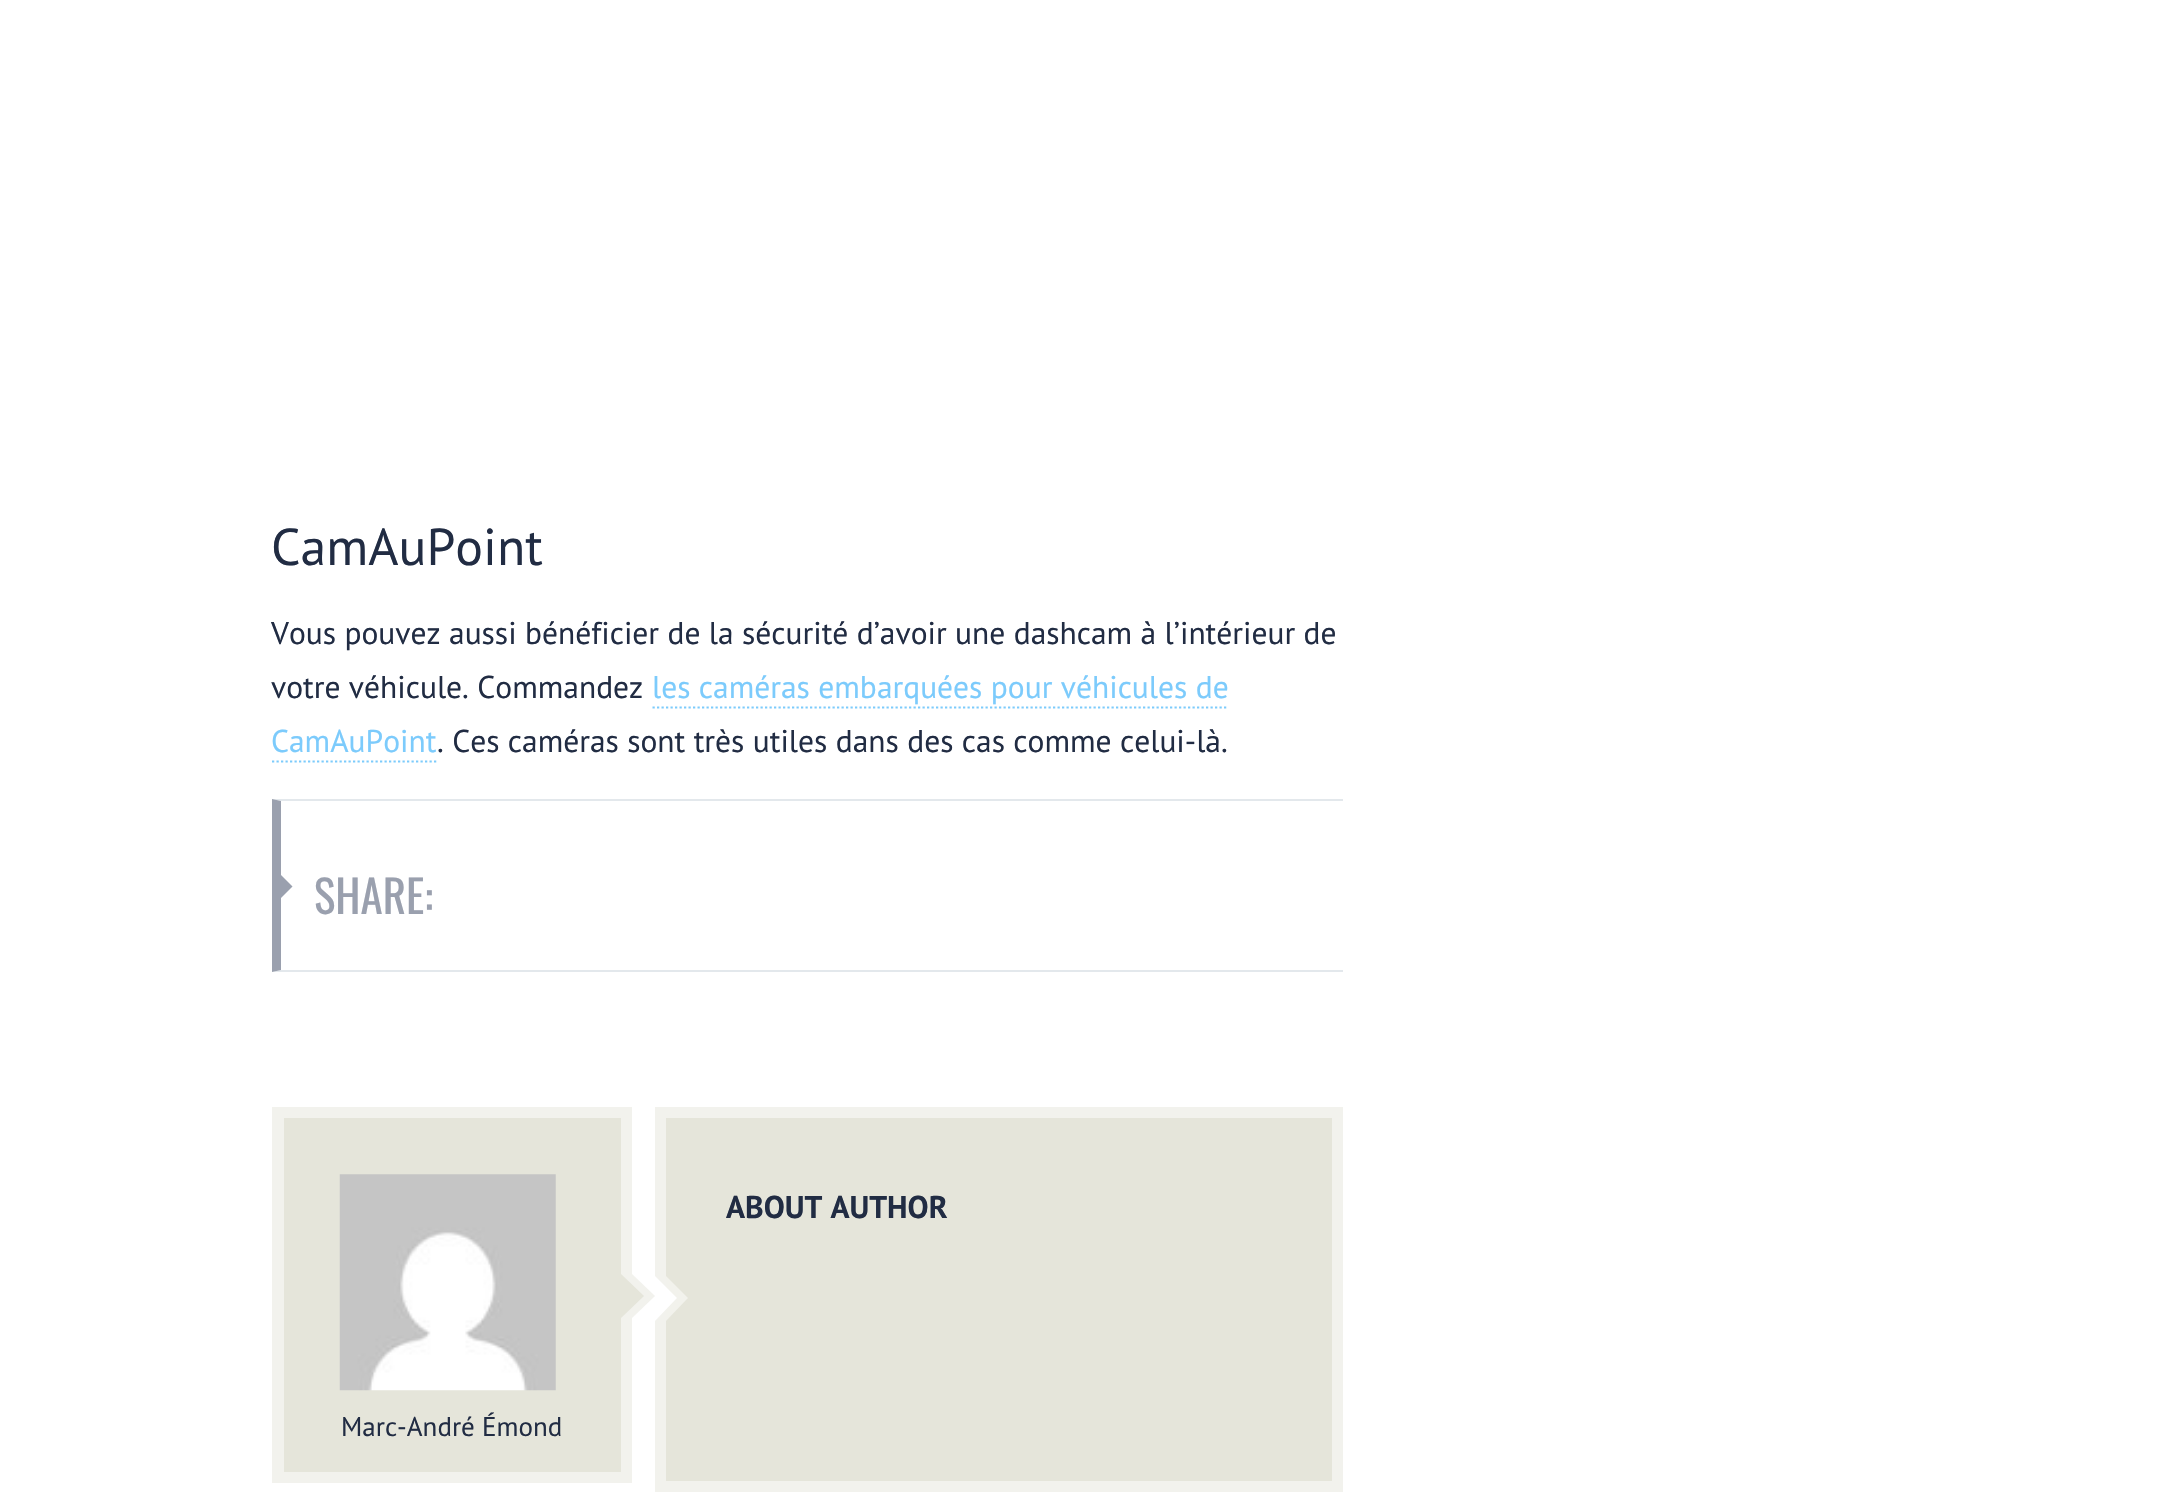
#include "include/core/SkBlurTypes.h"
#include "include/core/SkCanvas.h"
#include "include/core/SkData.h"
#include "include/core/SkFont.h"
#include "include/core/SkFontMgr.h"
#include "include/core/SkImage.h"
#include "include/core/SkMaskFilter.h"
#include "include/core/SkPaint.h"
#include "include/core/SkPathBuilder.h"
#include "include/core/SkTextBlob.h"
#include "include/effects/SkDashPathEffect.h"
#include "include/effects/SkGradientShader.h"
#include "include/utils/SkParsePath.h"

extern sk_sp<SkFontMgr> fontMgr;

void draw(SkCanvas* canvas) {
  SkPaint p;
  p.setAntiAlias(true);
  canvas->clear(SK_ColorWHITE);
  p.setStyle(SkPaint::kStroke_Style);
  p.setStrokeWidth(2.2f);
  p.setColor(SkColorSetRGB(124, 203, 252));
  p.setPathEffect(SkDashPathEffect::Make({{2.25f, 2.25f}}, 0));
  canvas->drawPath(SkPathBuilder().moveTo(652.5f, 707.5f).lineTo(1228.5f, 707.5f).detach(), p);
  p.setPathEffect(nullptr);
  p.setPathEffect(SkDashPathEffect::Make({{2.25f, 2.25f}}, 0));
  canvas->drawPath(SkPathBuilder().moveTo(272, 761.5f).lineTo(436.5f, 761.5f).detach(), p);
  p.setPathEffect(nullptr);
  p.setStyle(SkPaint::kFill_Style);
  p.setColor(SkColorSetRGB(227, 232, 236));
  canvas->drawPath(SkPathBuilder().moveTo(272, 799).lineTo(1343, 799).lineTo(1343, 801).lineTo(281, 801).close().detach(), p);
  canvas->drawPath(SkPathBuilder().moveTo(1343, 972).lineTo(272, 972).lineTo(281, 970).lineTo(1343, 970).close().detach(), p);
  p.setColor(SkColorSetRGB(154, 160, 174));
  canvas->drawPath(SkPathBuilder().moveTo(272, 972).lineTo(272, 799).lineTo(281, 801).lineTo(281, 970).close().detach(), p);
  canvas->drawPath(SkPathBuilder().moveTo(281, 898).lineTo(281, 875).lineTo(292.5f, 886.5f).close().detach(), p);
  p.setColor(SkColorSetRGB(242, 242, 237));
  canvas->drawRect(SkRect::MakeLTRB(655, 1107, 1343, 1492), p);
  p.setColor(SkColorSetRGB(229, 229, 218));
  canvas->drawRect(SkRect::MakeLTRB(666, 1118, 1332, 1481), p);
  p.setColor(SkColorSetRGB(242, 242, 236));
  canvas->drawPath(SkPathBuilder().moveTo(666, 1321).lineTo(666, 1276).lineTo(688, 1298).close().detach(), p);
  p.setColor(SK_ColorWHITE);
  canvas->drawPath(SkPathBuilder().moveTo(655, 1321).lineTo(655, 1276).lineTo(677, 1298).close().detach(), p);
  p.setColor(SkColorSetRGB(242, 242, 237));
  canvas->drawRect(SkRect::MakeLTRB(272, 1107, 632, 1483), p);
  canvas->drawPath(SkPathBuilder().moveTo(632, 1318).lineTo(632, 1274).lineTo(655, 1296).close().detach(), p);
  p.setColor(SkColorSetRGB(229, 229, 218));
  canvas->drawRect(SkRect::MakeLTRB(284, 1118, 621, 1472), p);
  canvas->drawImageRect(SkImages::DeferredFromEncodedData(SkData::MakeFromFileName("images/1.png")), SkRect::MakeLTRB(339, 1174, 556, 1391), SkSamplingOptions());
  canvas->drawPath(SkPathBuilder().moveTo(621, 1318).lineTo(621, 1274).lineTo(644, 1296).close().detach(), p);
  SkFont font1(fontMgr->matchFamilyStyle("PT Sans", SkFontStyle::Normal()), 51.75f);
  font1.setSubpixel(true);
  p.setColor(SkColorSetRGB(33, 44, 67));
  canvas->drawString("CamAuPoint", 271, 565, font1, p);
  SkFont font2(fontMgr->matchFamilyStyle("PT Sans", SkFontStyle::Normal()), 31.5f);
  font2.setSubpixel(true);
  canvas->drawString("Vous pouvez aussi bénéficier de la sécurité d’avoir une dashcam à l’intérieur de", 271, 644, font2, p);
  canvas->drawString("votre véhicule. Commandez", 271, 698, font2, p);
  p.setColor(SkColorSetRGB(124, 203, 252));
  canvas->drawString("les caméras embarquées pour véhicules de", 652, 698, font2, p);
  canvas->drawString("CamAuPoint", 271, 752, font2, p);
  p.setColor(SkColorSetRGB(33, 44, 67));
  canvas->drawString(". Ces caméras sont très utiles dans des cas comme celui-là.", 437, 752, font2, p);
  SkFont font3(fontMgr->matchFamilyStyle("Oswald", SkFontStyle::Normal()), 45);
  font3.setSubpixel(true);
  p.setColor(SkColorSetRGB(154, 160, 174));
  canvas->drawString("SHARE:", 314, 914, font3, p);
  SkFont font4(fontMgr->matchFamilyStyle("PT Sans", SkFontStyle::Bold()), 31.5f);
  font4.setSubpixel(true);
  p.setColor(SkColorSetRGB(33, 44, 67));
  canvas->drawString("ABOUT AUTHOR", 726, 1218, font4, p);
  SkFont font5(fontMgr->matchFamilyStyle("PT Sans", SkFontStyle::Normal()), 27);
  font5.setSubpixel(true);
  canvas->drawString("Marc-André Émond", 341, 1436, font5, p);
}
